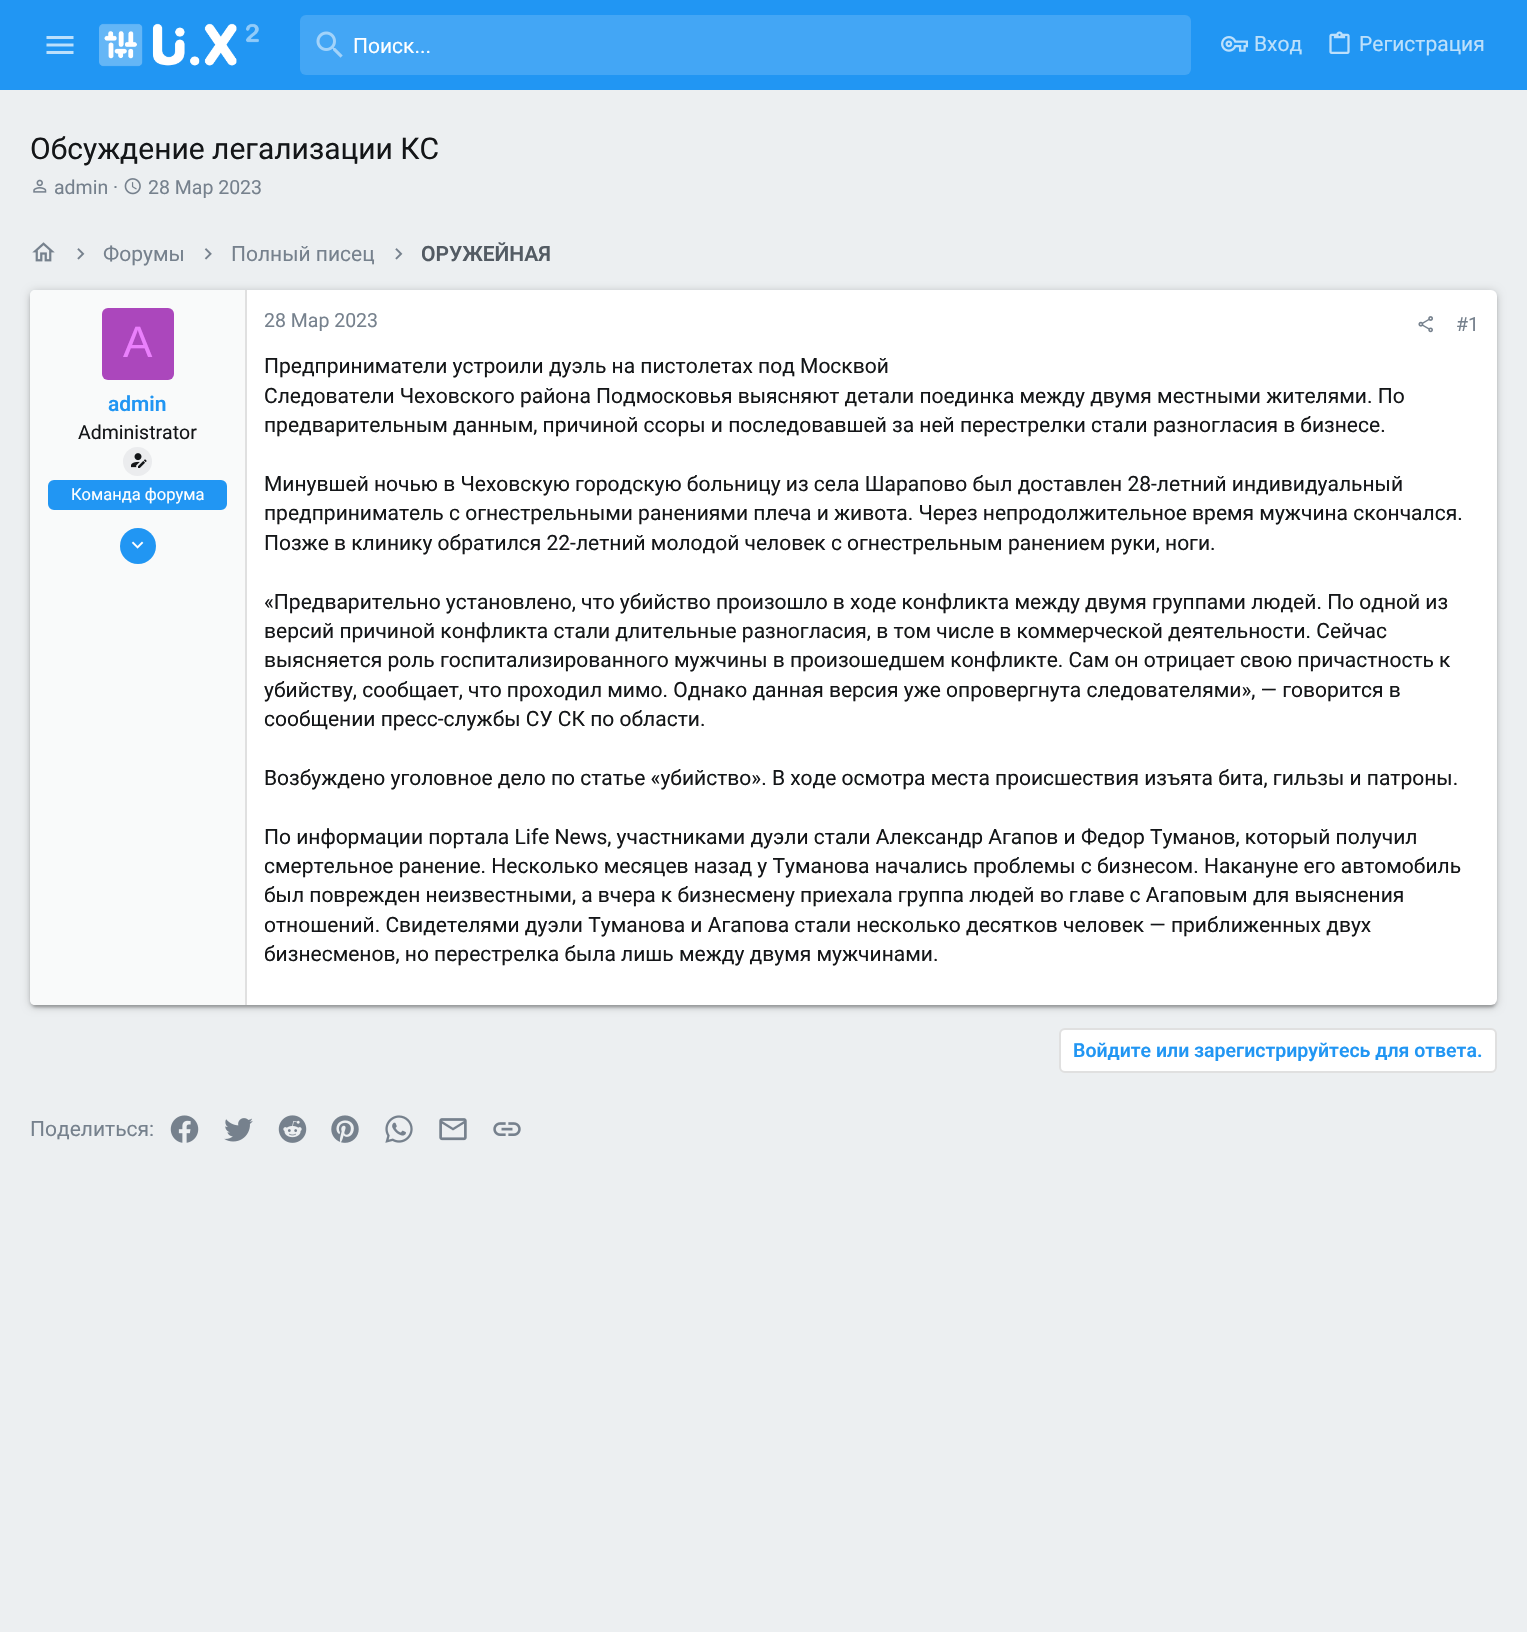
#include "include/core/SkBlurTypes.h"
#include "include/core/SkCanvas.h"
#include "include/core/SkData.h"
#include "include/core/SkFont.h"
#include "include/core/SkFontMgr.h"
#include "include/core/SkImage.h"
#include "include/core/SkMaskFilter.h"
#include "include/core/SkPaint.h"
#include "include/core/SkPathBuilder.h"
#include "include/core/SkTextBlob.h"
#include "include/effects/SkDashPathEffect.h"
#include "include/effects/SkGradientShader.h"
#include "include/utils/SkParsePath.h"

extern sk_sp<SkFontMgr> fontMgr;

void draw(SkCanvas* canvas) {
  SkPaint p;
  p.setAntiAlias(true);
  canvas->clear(SkColorSetRGB(236, 239, 241));
  p.setColor(SkColorSetRGB(33, 150, 243));
  canvas->drawRect(SkRect::MakeLTRB(0, 0, 1527, 90), p);
  canvas->drawImageRect(SkImages::DeferredFromEncodedData(SkData::MakeFromFileName("images/1.png")), SkRect::MakeLTRB(46, 36, 74, 54), SkSamplingOptions());
  canvas->drawImageRect(SkImages::DeferredFromEncodedData(SkData::MakeFromFileName("images/2.png")), SkRect::MakeLTRB(99, 23, 259, 67), SkSamplingOptions());
  p.setColor(SkColorSetRGB(67, 166, 245));
  canvas->drawRoundRect(SkRect::MakeLTRB(300, 15, 1191, 75), 6, 6, p);
  canvas->drawImageRect(SkImages::DeferredFromEncodedData(SkData::MakeFromFileName("images/3.png")), SkRect::MakeLTRB(316, 31, 343, 58), SkSamplingOptions());
  canvas->drawImageRect(SkImages::DeferredFromEncodedData(SkData::MakeFromFileName("images/4.png")), SkRect::MakeLTRB(1221, 36, 1248, 52), SkSamplingOptions());
  canvas->drawImageRect(SkImages::DeferredFromEncodedData(SkData::MakeFromFileName("images/5.png")), SkRect::MakeLTRB(1329, 31, 1350, 54), SkSamplingOptions());
  canvas->drawImageRect(SkImages::DeferredFromEncodedData(SkData::MakeFromFileName("images/6.png")), SkRect::MakeLTRB(33, 179, 47, 193), SkSamplingOptions());
  canvas->drawImageRect(SkImages::DeferredFromEncodedData(SkData::MakeFromFileName("images/7.png")), SkRect::MakeLTRB(124, 178, 141, 195), SkSamplingOptions());
  canvas->drawImageRect(SkImages::DeferredFromEncodedData(SkData::MakeFromFileName("images/8.png")), SkRect::MakeLTRB(32, 242, 55, 262), SkSamplingOptions());
  canvas->drawImageRect(SkImages::DeferredFromEncodedData(SkData::MakeFromFileName("images/9.png")), SkRect::MakeLTRB(77, 248, 85, 260), SkSamplingOptions());
  canvas->drawImageRect(SkImages::DeferredFromEncodedData(SkData::MakeFromFileName("images/10.png")), SkRect::MakeLTRB(204, 248, 212, 260), SkSamplingOptions());
  canvas->drawImageRect(SkImages::DeferredFromEncodedData(SkData::MakeFromFileName("images/9.png")), SkRect::MakeLTRB(395, 248, 403, 260), SkSamplingOptions());
  p.setColor(SkColorSetARGB(51, 0, 0, 0));
  p.setMaskFilter(SkMaskFilter::MakeBlur(kNormal_SkBlurStyle, 4));
  canvas->drawRoundRect(SkRect::MakeLTRB(30, 291, 1497, 1007), 6, 6, p);
  p.setMaskFilter(nullptr);
  p.setColor(SkColorSetARGB(31, 0, 0, 0));
  p.setMaskFilter(SkMaskFilter::MakeBlur(kNormal_SkBlurStyle, 1));
  canvas->drawRoundRect(SkRect::MakeLTRB(33, 297, 1494, 1007), 3, 3, p);
  p.setMaskFilter(nullptr);
  p.setColor(SkColorSetARGB(36, 0, 0, 0));
  p.setMaskFilter(SkMaskFilter::MakeBlur(kNormal_SkBlurStyle, 1.5f));
  canvas->drawRoundRect(SkRect::MakeLTRB(30, 293, 1497, 1008), 6, 6, p);
  p.setMaskFilter(nullptr);
  p.setColor(SK_ColorWHITE);
  canvas->drawRoundRect(SkRect::MakeLTRB(30, 290, 1497, 1005), 6, 6, p);
  p.setColor(SkColorSetRGB(249, 250, 250));
  canvas->drawPath(SkPathBuilder().moveTo(35, 290).lineTo(246, 290).lineTo(246, 1005).lineTo(35, 1005).cubicTo(32, 1005, 30, 1003, 30, 1000).lineTo(30, 295).cubicTo(30, 292, 32, 290, 35, 290).close().detach(), p);
  p.setColor(SkColorSetRGB(224, 224, 224));
  canvas->drawRect(SkRect::MakeLTRB(245, 290, 247, 1005), p);
  p.setColor(SkColorSetRGB(171, 71, 188));
  canvas->drawRoundRect(SkRect::MakeLTRB(102, 308, 174, 380), 6, 6, p);
  p.setColor(SkColorSetRGB(235, 236, 238));
  canvas->drawCircle(137.5f, 461.5f, 14.5f, p);
  canvas->drawImageRect(SkImages::DeferredFromEncodedData(SkData::MakeFromFileName("images/11.png")), SkRect::MakeLTRB(131, 453, 147, 468), SkSamplingOptions());
  p.setColor(SkColorSetRGB(33, 150, 243));
  canvas->drawRoundRect(SkRect::MakeLTRB(49, 481, 226, 509), 5, 5, p);
  p.setStyle(SkPaint::kStroke_Style);
  p.setStrokeWidth(2);
  canvas->drawRoundRect(SkRect::MakeLTRB(49, 481, 226, 509), 5, 5, p);
  p.setStyle(SkPaint::kFill_Style);
  canvas->drawCircle(138, 546, 18, p);
  canvas->drawImageRect(SkImages::DeferredFromEncodedData(SkData::MakeFromFileName("images/12.png")), SkRect::MakeLTRB(131, 541, 144, 549), SkSamplingOptions());
  canvas->drawImageRect(SkImages::DeferredFromEncodedData(SkData::MakeFromFileName("images/13.png")), SkRect::MakeLTRB(1418, 316, 1433, 333), SkSamplingOptions());
  p.setColor(SK_ColorWHITE);
  canvas->drawRoundRect(SkRect::MakeLTRB(1060, 1029, 1496, 1072), 5, 5, p);
  p.setStyle(SkPaint::kStroke_Style);
  p.setColor(SkColorSetRGB(224, 224, 224));
  canvas->drawRoundRect(SkRect::MakeLTRB(1060, 1029, 1496, 1072), 5, 5, p);
  canvas->drawImageRect(SkImages::DeferredFromEncodedData(SkData::MakeFromFileName("images/14.png")), SkRect::MakeLTRB(170, 1115, 199, 1143), SkSamplingOptions());
  canvas->drawImageRect(SkImages::DeferredFromEncodedData(SkData::MakeFromFileName("images/15.png")), SkRect::MakeLTRB(224, 1118, 253, 1142), SkSamplingOptions());
  canvas->drawImageRect(SkImages::DeferredFromEncodedData(SkData::MakeFromFileName("images/16.png")), SkRect::MakeLTRB(278, 1115, 307, 1143), SkSamplingOptions());
  canvas->drawImageRect(SkImages::DeferredFromEncodedData(SkData::MakeFromFileName("images/17.png")), SkRect::MakeLTRB(331, 1115, 359, 1143), SkSamplingOptions());
  canvas->drawImageRect(SkImages::DeferredFromEncodedData(SkData::MakeFromFileName("images/18.png")), SkRect::MakeLTRB(385, 1115, 413, 1143), SkSamplingOptions());
  canvas->drawImageRect(SkImages::DeferredFromEncodedData(SkData::MakeFromFileName("images/19.png")), SkRect::MakeLTRB(439, 1118, 467, 1141), SkSamplingOptions());
  canvas->drawImageRect(SkImages::DeferredFromEncodedData(SkData::MakeFromFileName("images/20.png")), SkRect::MakeLTRB(493, 1122, 521, 1136), SkSamplingOptions());
  SkFont font1(fontMgr->matchFamilyStyle("Roboto", SkFontStyle::Normal()), 21);
  font1.setSubpixel(true);
  p.setStyle(SkPaint::kFill_Style);
  p.setColor(SK_ColorWHITE);
  canvas->drawString("Поиск...", 353, 53, font1, p);
  p.setColor(SkColorSetRGB(188, 224, 251));
  canvas->drawString("Вход", 1254, 51, font1, p);
  canvas->drawString("Регистрация", 1359, 51, font1, p);
  SkFont font2(fontMgr->matchFamilyStyle("Roboto", SkFontStyle::Normal()), 30);
  font2.setSubpixel(true);
  p.setColor(SkColorSetRGB(20, 22, 24));
  canvas->drawString("Обсуждение легализации КС", 30, 159, font2, p);
  SkFont font3(fontMgr->matchFamilyStyle("Roboto", SkFontStyle::Normal()), 19.5f);
  font3.setSubpixel(true);
  p.setColor(SkColorSetRGB(118, 129, 141));
  canvas->drawString("admin ·", 54, 194, font3, p);
  canvas->drawString("28 Мар 2023", 148, 194, font3, p);
  canvas->drawString("Форумы", 103, 261, font1, p);
  canvas->drawString("Полный писец", 231, 261, font1, p);
  canvas->save();
  canvas->clipRect(SkRect::MakeLTRB(422, 240, 551, 270));
  SkFont font4(fontMgr->matchFamilyStyle("Roboto", SkFontStyle(600, SkFontStyle::kNormal_Width, SkFontStyle::kUpright_Slant)), 21);
  font4.setSubpixel(true);
  p.setColor(SkColorSetRGB(83, 91, 99));
  canvas->drawString("ОРУЖЕЙНАЯ", 421, 261, font4, p);
  canvas->restore();
  SkFont font5(fontMgr->matchFamilyStyle("Liberation Sans", SkFontStyle::Normal()), 44);
  font5.setSubpixel(true);
  p.setColor(SkColorSetRGB(234, 128, 252));
  canvas->drawString("A", 123, 357, font5, p);
  p.setColor(SkColorSetRGB(33, 150, 243));
  canvas->drawString("admin", 108, 411, font4, p);
  p.setColor(SkColorSetRGB(20, 22, 24));
  canvas->drawString("Administrator", 78, 439, font3, p);
  SkFont font6(fontMgr->matchFamilyStyle("Roboto", SkFontStyle::Normal()), 16.5f);
  font6.setSubpixel(true);
  p.setColor(SK_ColorWHITE);
  canvas->drawString("Команда форума", 71, 500, font6, p);
  p.setColor(SkColorSetRGB(118, 129, 141));
  canvas->drawString("28 Мар 2023", 264, 327, font3, p);
  canvas->drawString("#1", 1456, 331, font3, p);
  p.setColor(SkColorSetRGB(20, 22, 24));
  canvas->drawString("Предприниматели устроили дуэль на пистолетах под Москвой", 264, 373, font1, p);
  canvas->drawString("Следователи Чеховского района Подмосковья выясняют детали поединка между двумя местными жителями. По", 264, 403, font1, p);
  canvas->drawString("предварительным данным, причиной ссоры и последовавшей за ней перестрелки стали разногласия в бизнесе.", 264, 432, font1, p);
  canvas->drawString("Минувшей ночью в Чеховскую городскую больницу из села Шарапово был доставлен 28-летний индивидуальный", 264, 491, font1, p);
  canvas->drawString("предприниматель с огнестрельными ранениями плеча и живота. Через непродолжительное время мужчина скончался.", 264, 520, font1, p);
  canvas->drawString("Позже в клинику обратился 22-летний молодой человек с огнестрельным ранением руки, ноги.", 264, 550, font1, p);
  canvas->drawString("«Предварительно установлено, что убийство произошло в ходе конфликта между двумя группами людей. По одной из", 264, 609, font1, p);
  canvas->drawString("версий причиной конфликта стали длительные разногласия, в том числе в коммерческой деятельности. Сейчас", 264, 638, font1, p);
  canvas->drawString("выясняется роль госпитализированного мужчины в произошедшем конфликте. Сам он отрицает свою причастность к", 264, 667, font1, p);
  canvas->drawString("убийству, сообщает, что проходил мимо. Однако данная версия уже опровергнута следователями», — говорится в", 264, 697, font1, p);
  canvas->drawString("сообщении пресс-службы СУ СК по области.", 264, 726, font1, p);
  canvas->drawString("Возбуждено уголовное дело по статье «убийство». В ходе осмотра места происшествия изъята бита, гильзы и патроны.", 264, 785, font1, p);
  canvas->drawString("По информации портала Life News, участниками дуэли стали Александр Агапов и Федор Туманов, который получил", 264, 844, font1, p);
  canvas->drawString("смертельное ранение. Несколько месяцев назад у Туманова начались проблемы с бизнесом. Накануне его автомобиль", 264, 873, font1, p);
  canvas->drawString("был поврежден неизвестными, а вчера к бизнесмену приехала группа людей во главе с Агаповым для выяснения", 264, 902, font1, p);
  canvas->drawString("отношений. Свидетелями дуэли Туманова и Агапова стали несколько десятков человек — приближенных двух", 264, 932, font1, p);
  canvas->drawString("бизнесменов, но перестрелка была лишь между двумя мужчинами.", 264, 961, font1, p);
  SkFont font7(fontMgr->matchFamilyStyle("Roboto", SkFontStyle(600, SkFontStyle::kNormal_Width, SkFontStyle::kUpright_Slant)), 19.5f);
  font7.setSubpixel(true);
  p.setColor(SkColorSetRGB(33, 150, 243));
  canvas->drawString("Войдите или зарегистрируйтесь для ответа.", 1073, 1057, font7, p);
  p.setColor(SkColorSetRGB(118, 129, 141));
  canvas->drawString("Поделиться:", 30, 1136, font1, p);
}
